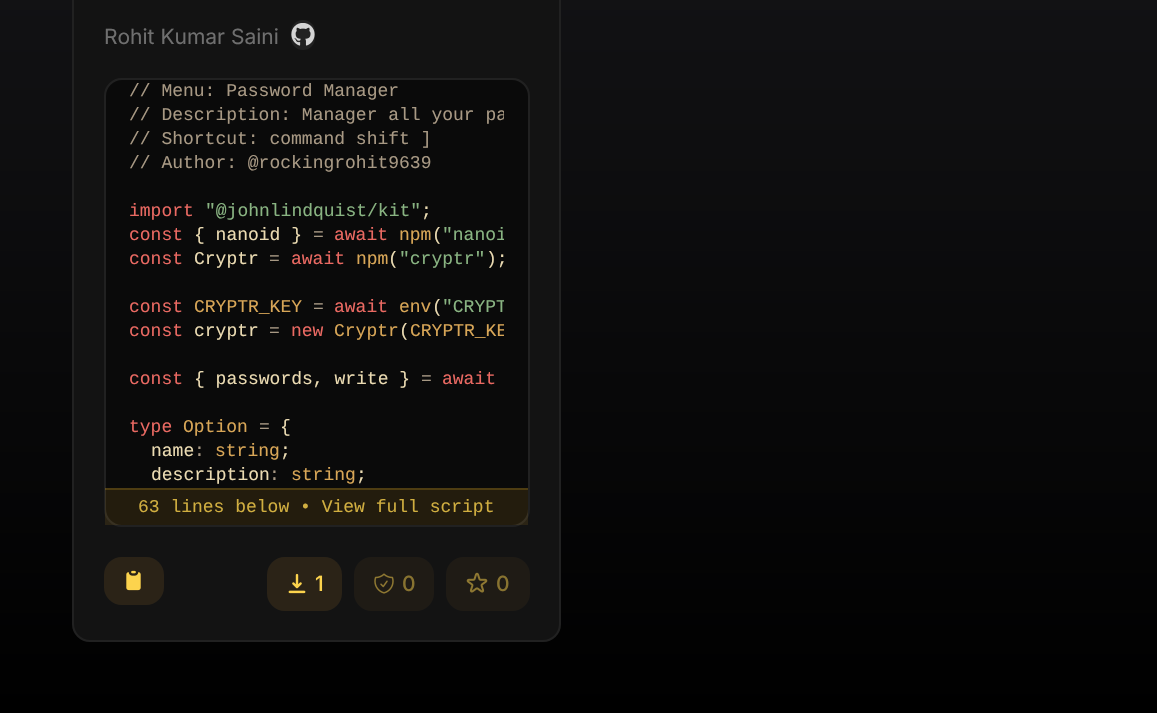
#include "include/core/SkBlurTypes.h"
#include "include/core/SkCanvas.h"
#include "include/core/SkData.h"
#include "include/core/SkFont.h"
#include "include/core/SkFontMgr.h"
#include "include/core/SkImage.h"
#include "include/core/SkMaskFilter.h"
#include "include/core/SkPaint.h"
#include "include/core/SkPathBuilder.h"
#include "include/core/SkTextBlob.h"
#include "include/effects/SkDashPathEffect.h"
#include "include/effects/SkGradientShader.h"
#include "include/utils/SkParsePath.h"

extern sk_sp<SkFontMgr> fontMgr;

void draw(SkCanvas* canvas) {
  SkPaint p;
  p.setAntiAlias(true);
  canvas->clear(SK_ColorWHITE);
  {
    const SkColor colors[] = {SkColorSetRGB(24, 24, 27), SK_ColorBLACK};
    const float stops[] = {0, 1};
    const SkPoint ends[] = {{579, -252}, {579, 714}};
    p.setShader(SkGradientShader::MakeLinear(ends, colors, stops, 2, SkTileMode::kClamp));
    p.setAlpha(255);
  }
  canvas->drawRect(SkRect::MakeLTRB(0, 0, 1157, 713), p);
  p.setShader(nullptr);
  p.setColor(SkColorSetRGB(19, 19, 19));
  canvas->drawRoundRect(SkRect::MakeLTRB(73, -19, 560, 641), 17, 17, p);
  p.setStyle(SkPaint::kStroke_Style);
  p.setStrokeWidth(2);
  p.setColor(SkColorSetRGB(33, 33, 33));
  canvas->drawRoundRect(SkRect::MakeLTRB(73, -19, 560, 641), 17, 17, p);
  p.setStyle(SkPaint::kFill_Style);
  canvas->drawRoundRect(SkRect::MakeLTRB(291, 20, 315, 50), 12, 12, p);
  canvas->drawImageRect(SkImages::DeferredFromEncodedData(SkData::MakeFromFileName("images/1.png")), SkRect::MakeLTRB(291, 23, 315, 46), SkSamplingOptions());
  p.setColor(SkColorSetRGB(10, 10, 10));
  canvas->drawRoundRect(SkRect::MakeLTRB(105, 79, 529, 526), 17, 17, p);
  p.setStyle(SkPaint::kStroke_Style);
  p.setColor(SkColorSetRGB(33, 33, 33));
  canvas->drawRoundRect(SkRect::MakeLTRB(105, 79, 529, 526), 17, 17, p);
  p.setStyle(SkPaint::kFill_Style);
  p.setColor(SkColorSetARGB(26, 251, 191, 36));
  canvas->drawRect(SkRect::MakeLTRB(105, 488, 528, 525), p);
  p.setColor(SkColorSetARGB(51, 251, 191, 36));
  canvas->drawRect(SkRect::MakeLTRB(105, 488, 528, 490), p);
  p.setColor(SkColorSetRGB(43, 35, 23));
  canvas->drawRoundRect(SkRect::MakeLTRB(104, 557, 164, 605), 18, 18, p);
  canvas->drawImageRect(SkImages::DeferredFromEncodedData(SkData::MakeFromFileName("images/2.png")), SkRect::MakeLTRB(126, 570, 141, 591), SkSamplingOptions());
  canvas->drawRoundRect(SkRect::MakeLTRB(267, 557, 342, 611), 18, 18, p);
  canvas->drawImageRect(SkImages::DeferredFromEncodedData(SkData::MakeFromFileName("images/3.png")), SkRect::MakeLTRB(288, 573, 306, 594), SkSamplingOptions());
  p.setColor(SkColorSetRGB(31, 27, 21));
  canvas->drawRoundRect(SkRect::MakeLTRB(354, 557, 434, 611), 18, 18, p);
  canvas->drawImageRect(SkImages::DeferredFromEncodedData(SkData::MakeFromFileName("images/4.png")), SkRect::MakeLTRB(374, 573, 394, 594), SkSamplingOptions());
  canvas->drawRoundRect(SkRect::MakeLTRB(446, 557, 530, 611), 18, 18, p);
  canvas->drawImageRect(SkImages::DeferredFromEncodedData(SkData::MakeFromFileName("images/5.png")), SkRect::MakeLTRB(466, 572, 488, 593), SkSamplingOptions());
  SkFont font1(fontMgr->matchFamilyStyle("Inter", SkFontStyle::Normal()), 21);
  font1.setSubpixel(true);
  p.setColor(SkColorSetRGB(111, 111, 111));
  canvas->drawString("Rohit Kumar Saini", 104, 44, font1, p);
  SkFont font2(fontMgr->matchFamilyStyle("Liberation Mono", SkFontStyle::Normal()), 18);
  font2.setSubpixel(true);
  p.setColor(SkColorSetRGB(168, 153, 132));
  canvas->drawString("// Menu: Password Manager", 129, 96, font2, p);
  canvas->save();
  canvas->clipRect(SkRect::MakeLTRB(129, 80, 504, 488));
  canvas->drawString("// Description: Manager all your pa", 129, 120, font2, p);
  canvas->restore();
  canvas->drawString("// Shortcut: command shift ]", 129, 144, font2, p);
  canvas->drawString("// Author: @rockingrohit9639", 129, 168, font2, p);
  p.setColor(SkColorSetRGB(234, 105, 98));
  canvas->drawString("import", 129, 216, font2, p);
  p.setColor(SkColorSetRGB(137, 180, 130));
  canvas->drawString("\"@johnlindquist/kit\"", 205, 216, font2, p);
  p.setColor(SkColorSetRGB(235, 219, 178));
  canvas->drawString(";", 421, 216, font2, p);
  p.setColor(SkColorSetRGB(234, 105, 98));
  canvas->drawString("const", 129, 240, font2, p);
  p.setColor(SkColorSetRGB(235, 219, 178));
  canvas->drawString("{ nanoid }", 194, 240, font2, p);
  p.setColor(SkColorSetRGB(168, 153, 132));
  canvas->drawString("=", 313, 240, font2, p);
  p.setColor(SkColorSetRGB(234, 105, 98));
  canvas->drawString("await", 334, 240, font2, p);
  p.setColor(SkColorSetRGB(216, 166, 87));
  canvas->drawString("npm", 399, 240, font2, p);
  p.setColor(SkColorSetRGB(235, 219, 178));
  canvas->drawString("(", 432, 240, font2, p);
  canvas->save();
  canvas->clipRect(SkRect::MakeLTRB(129, 80, 504, 488));
  p.setColor(SkColorSetRGB(137, 180, 130));
  canvas->drawString("\"nanoi", 442, 240, font2, p);
  canvas->restore();
  p.setColor(SkColorSetRGB(234, 105, 98));
  canvas->drawString("const", 129, 264, font2, p);
  p.setColor(SkColorSetRGB(235, 219, 178));
  canvas->drawString("Cryptr", 194, 264, font2, p);
  p.setColor(SkColorSetRGB(168, 153, 132));
  canvas->drawString("=", 269, 264, font2, p);
  p.setColor(SkColorSetRGB(234, 105, 98));
  canvas->drawString("await", 291, 264, font2, p);
  p.setColor(SkColorSetRGB(216, 166, 87));
  canvas->drawString("npm", 356, 264, font2, p);
  p.setColor(SkColorSetRGB(235, 219, 178));
  canvas->drawString("(", 388, 264, font2, p);
  p.setColor(SkColorSetRGB(137, 180, 130));
  canvas->drawString("\"cryptr\"", 399, 264, font2, p);
  p.setColor(SkColorSetRGB(235, 219, 178));
  canvas->drawString(");", 486, 264, font2, p);
  p.setColor(SkColorSetRGB(234, 105, 98));
  canvas->drawString("const", 129, 312, font2, p);
  p.setColor(SkColorSetRGB(216, 166, 87));
  canvas->drawString("CRYPTR_KEY", 194, 312, font2, p);
  p.setColor(SkColorSetRGB(168, 153, 132));
  canvas->drawString("=", 313, 312, font2, p);
  p.setColor(SkColorSetRGB(234, 105, 98));
  canvas->drawString("await", 334, 312, font2, p);
  p.setColor(SkColorSetRGB(216, 166, 87));
  canvas->drawString("env", 399, 312, font2, p);
  p.setColor(SkColorSetRGB(235, 219, 178));
  canvas->drawString("(", 432, 312, font2, p);
  canvas->save();
  canvas->clipRect(SkRect::MakeLTRB(129, 80, 504, 488));
  p.setColor(SkColorSetRGB(137, 180, 130));
  canvas->drawString("\"CRYPT", 442, 312, font2, p);
  canvas->restore();
  p.setColor(SkColorSetRGB(234, 105, 98));
  canvas->drawString("const", 129, 336, font2, p);
  p.setColor(SkColorSetRGB(235, 219, 178));
  canvas->drawString("cryptr", 194, 336, font2, p);
  p.setColor(SkColorSetRGB(168, 153, 132));
  canvas->drawString("=", 269, 336, font2, p);
  p.setColor(SkColorSetRGB(234, 105, 98));
  canvas->drawString("new", 291, 336, font2, p);
  p.setColor(SkColorSetRGB(216, 166, 87));
  canvas->drawString("Cryptr", 334, 336, font2, p);
  p.setColor(SkColorSetRGB(235, 219, 178));
  canvas->drawString("(", 399, 336, font2, p);
  canvas->save();
  canvas->clipRect(SkRect::MakeLTRB(129, 80, 504, 488));
  p.setColor(SkColorSetRGB(216, 166, 87));
  canvas->drawString("CRYPTR_KE", 410, 336, font2, p);
  canvas->restore();
  p.setColor(SkColorSetRGB(234, 105, 98));
  canvas->drawString("const", 129, 384, font2, p);
  p.setColor(SkColorSetRGB(235, 219, 178));
  canvas->drawString("{ passwords, write }", 194, 384, font2, p);
  p.setColor(SkColorSetRGB(168, 153, 132));
  canvas->drawString("=", 421, 384, font2, p);
  p.setColor(SkColorSetRGB(234, 105, 98));
  canvas->drawString("await", 442, 384, font2, p);
  canvas->drawString("type", 129, 432, font2, p);
  p.setColor(SkColorSetRGB(216, 166, 87));
  canvas->drawString("Option", 183, 432, font2, p);
  p.setColor(SkColorSetRGB(168, 153, 132));
  canvas->drawString("=", 259, 432, font2, p);
  p.setColor(SkColorSetRGB(235, 219, 178));
  canvas->drawString("{", 280, 432, font2, p);
  canvas->drawString("name", 151, 456, font2, p);
  p.setColor(SkColorSetRGB(168, 153, 132));
  canvas->drawString(":", 194, 456, font2, p);
  p.setColor(SkColorSetRGB(216, 166, 87));
  canvas->drawString("string", 215, 456, font2, p);
  p.setColor(SkColorSetRGB(235, 219, 178));
  canvas->drawString(";", 280, 456, font2, p);
  canvas->drawString("description", 151, 480, font2, p);
  p.setColor(SkColorSetRGB(168, 153, 132));
  canvas->drawString(":", 269, 480, font2, p);
  p.setColor(SkColorSetRGB(216, 166, 87));
  canvas->drawString("string", 291, 480, font2, p);
  p.setColor(SkColorSetRGB(235, 219, 178));
  canvas->drawString(";", 356, 480, font2, p);
  p.setColor(SkColorSetRGB(208, 174, 64));
  canvas->drawString("63 lines below • View full script", 138, 512, font2, p);
  SkFont font3(fontMgr->matchFamilyStyle("Inter", SkFontStyle(500, SkFontStyle::kNormal_Width, SkFontStyle::kUpright_Slant)), 21);
  font3.setSubpixel(true);
  p.setColor(SkColorSetRGB(252, 211, 77));
  canvas->drawString("1", 315, 591, font3, p);
  p.setColor(SkColorSetRGB(136, 115, 48));
  canvas->drawString("0", 402, 591, font3, p);
  canvas->drawString("0", 496, 591, font3, p);
}
